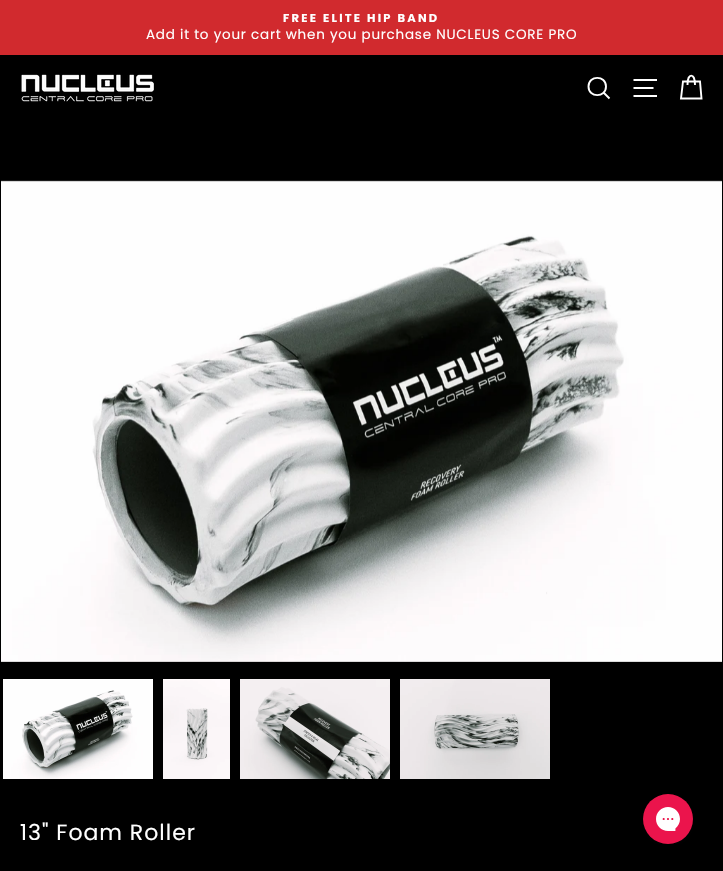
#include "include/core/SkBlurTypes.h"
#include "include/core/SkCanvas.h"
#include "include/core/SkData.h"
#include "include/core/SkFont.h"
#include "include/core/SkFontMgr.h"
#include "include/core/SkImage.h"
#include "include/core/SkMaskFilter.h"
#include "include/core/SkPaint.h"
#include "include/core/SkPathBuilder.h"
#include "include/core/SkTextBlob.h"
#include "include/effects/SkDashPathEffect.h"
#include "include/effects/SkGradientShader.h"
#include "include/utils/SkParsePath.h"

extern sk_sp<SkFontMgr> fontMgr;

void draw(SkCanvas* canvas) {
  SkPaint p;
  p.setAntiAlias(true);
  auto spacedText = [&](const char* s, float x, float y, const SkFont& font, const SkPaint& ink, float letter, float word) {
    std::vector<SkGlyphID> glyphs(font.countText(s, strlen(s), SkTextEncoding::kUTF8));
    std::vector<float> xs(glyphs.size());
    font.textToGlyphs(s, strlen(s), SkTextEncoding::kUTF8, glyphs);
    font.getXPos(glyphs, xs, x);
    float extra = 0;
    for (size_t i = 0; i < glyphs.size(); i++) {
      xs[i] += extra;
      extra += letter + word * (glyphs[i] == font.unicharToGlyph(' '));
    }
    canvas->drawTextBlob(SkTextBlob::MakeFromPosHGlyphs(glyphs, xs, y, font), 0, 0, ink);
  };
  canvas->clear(SK_ColorBLACK);
  p.setColor(SkColorSetRGB(209, 42, 46));
  canvas->drawRect(SkRect::MakeLTRB(0, 0, 723, 55), p);
  canvas->drawImageRect(SkImages::DeferredFromEncodedData(SkData::MakeFromFileName("images/1.png")), SkRect::MakeLTRB(21, 74, 154, 102), SkSamplingOptions());
  p.setStyle(SkPaint::kStroke_Style);
  p.setStrokeWidth(1.9f);
  p.setColor(SK_ColorWHITE);
  canvas->drawPath(SkPathBuilder().moveTo(606, 86.5f).cubicTo(606, 98, 588.5f, 98, 588.5f, 86.5f).cubicTo(588.5f, 75, 606, 75, 606, 86.5f).close().moveTo(609.5f, 98.5f).lineTo(603.5f, 92.5f).detach(), p);
  canvas->drawPath(SkPathBuilder().moveTo(633.5f, 80).lineTo(657, 80).moveTo(633.5f, 88).lineTo(653.5f, 88).moveTo(633.5f, 96).lineTo(657, 96).moveTo(687.5f, 85).cubicTo(687.5f, 72.5f, 695, 72.5f, 695, 85).detach(), p);
  canvas->drawPath(SkPathBuilder().moveTo(683, 81.5f).lineTo(700, 81.5f).lineTo(701.5f, 98.5f).lineTo(681, 98.5f).close().detach(), p);
  canvas->drawImageRect(SkImages::DeferredFromEncodedData(SkData::MakeFromFileName("images/2.png")), SkRect::MakeLTRB(1, 180, 722, 662), SkSamplingOptions());
  canvas->drawImageRect(SkImages::DeferredFromEncodedData(SkData::MakeFromFileName("images/3.png")), SkRect::MakeLTRB(3, 679, 153, 779), SkSamplingOptions());
  canvas->drawImageRect(SkImages::DeferredFromEncodedData(SkData::MakeFromFileName("images/4.png")), SkRect::MakeLTRB(163, 679, 230, 779), SkSamplingOptions());
  canvas->drawImageRect(SkImages::DeferredFromEncodedData(SkData::MakeFromFileName("images/5.png")), SkRect::MakeLTRB(240, 679, 390, 779), SkSamplingOptions());
  canvas->drawImageRect(SkImages::DeferredFromEncodedData(SkData::MakeFromFileName("images/6.png")), SkRect::MakeLTRB(400, 679, 550, 779), SkSamplingOptions());
  canvas->drawImageRect(SkImages::DeferredFromEncodedData(SkData::MakeFromFileName("images/7.png")), SkRect::MakeLTRB(643, 794, 693, 844), SkSamplingOptions());
  SkFont font1(fontMgr->matchFamilyStyle("Poppins", SkFontStyle::Bold()), 11.5f);
  font1.setSubpixel(true);
  p.setStyle(SkPaint::kFill_Style);
  spacedText("FREE ELITE HIP BAND", 283, 22, font1, p, 2.25f, 0);
  SkFont font2(fontMgr->matchFamilyStyle("Poppins", SkFontStyle::Normal()), 13.5f);
  font2.setSubpixel(true);
  spacedText("Add it to your cart when you purchase NUCLEUS CORE PRO", 146, 39, font2, p, 0.77f, 0);
  SkFont font3(fontMgr->matchFamilyStyle("Poppins", SkFontStyle::Normal()), 22);
  font3.setSubpixel(true);
  spacedText("13\" Foam Roller", 20, 840, font3, p, 1, 0);
}
